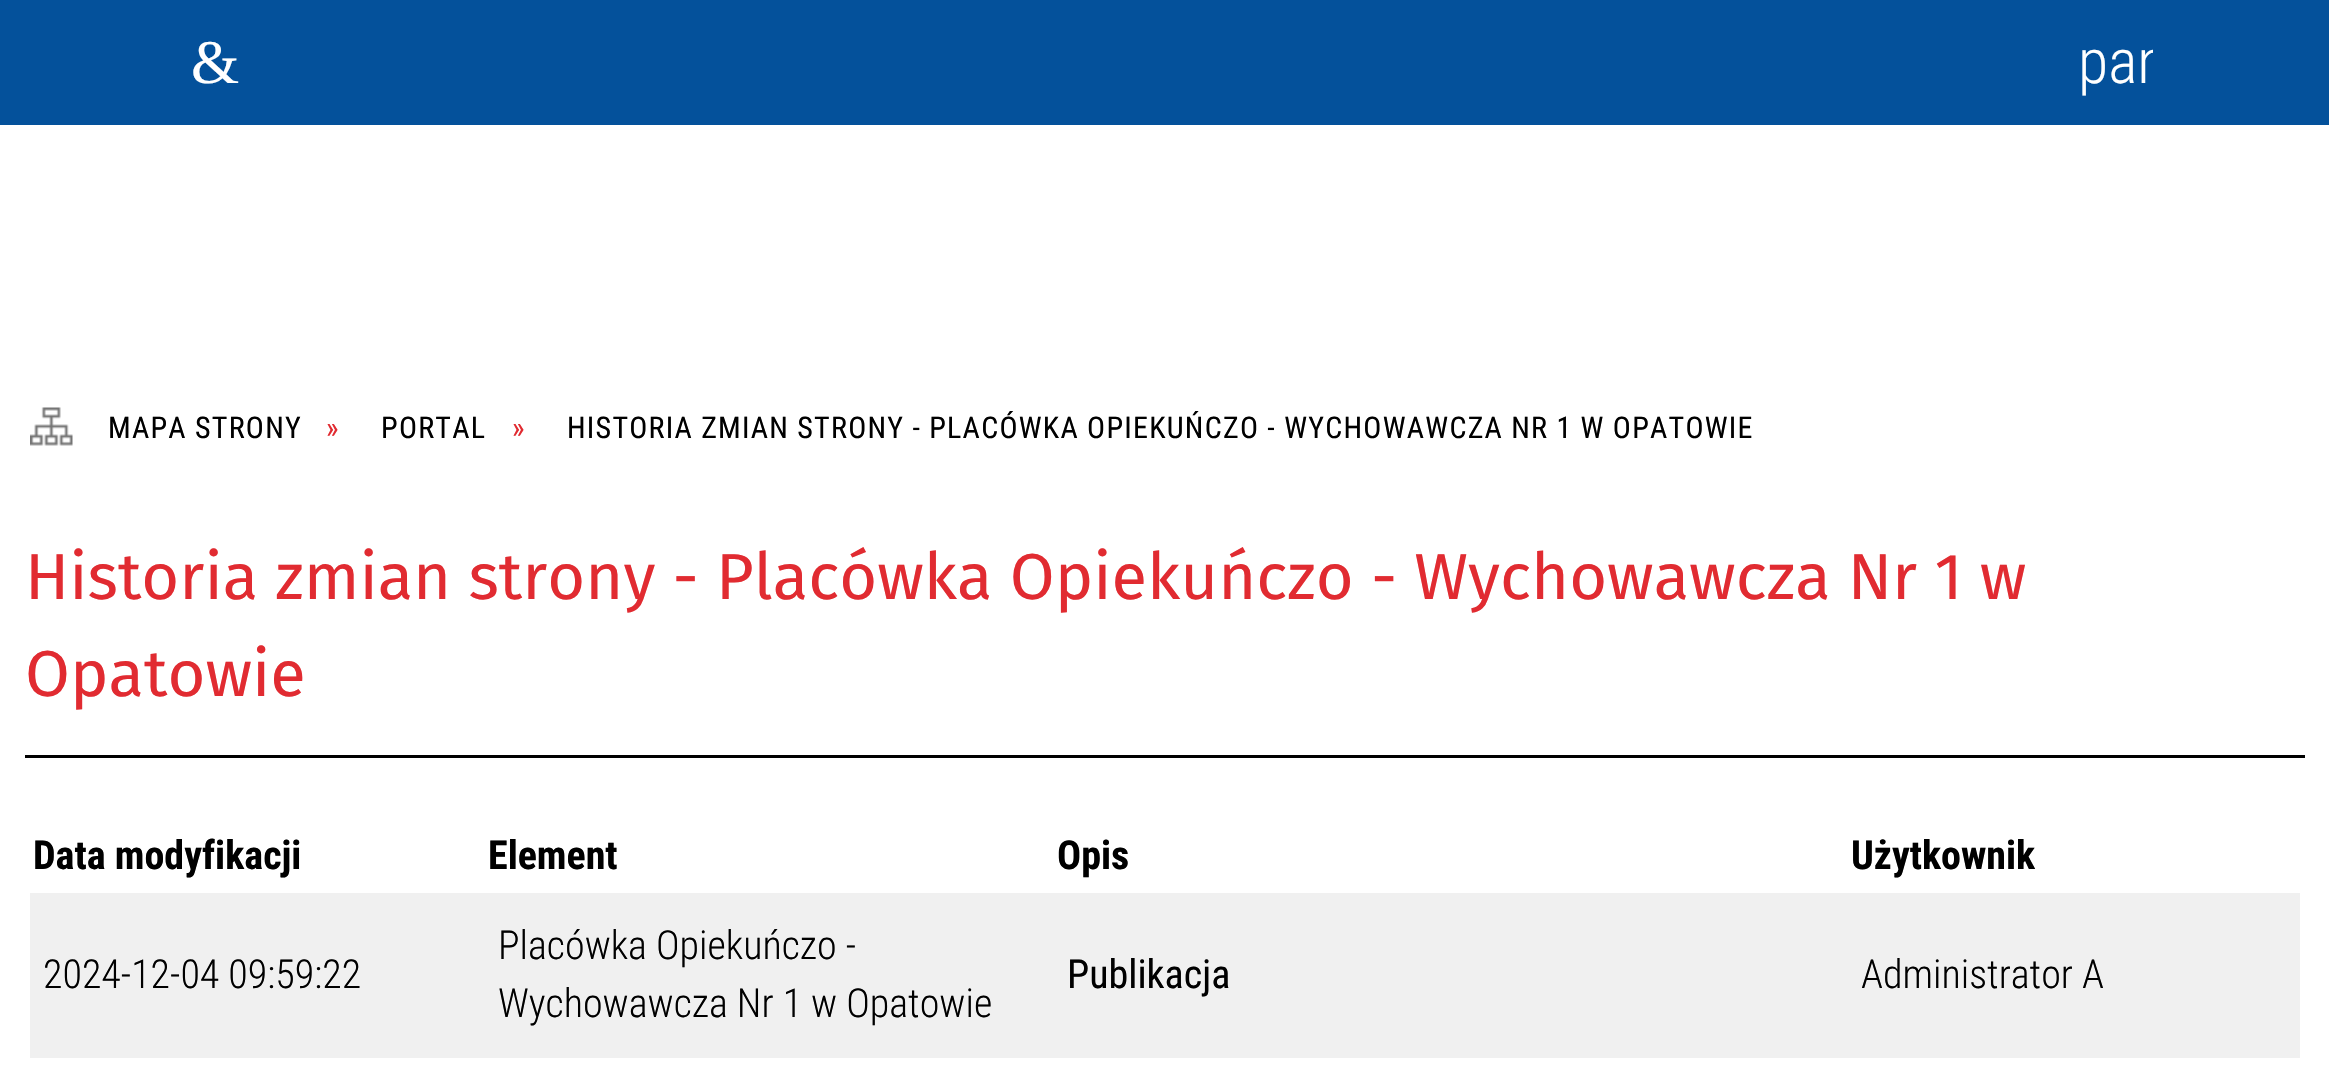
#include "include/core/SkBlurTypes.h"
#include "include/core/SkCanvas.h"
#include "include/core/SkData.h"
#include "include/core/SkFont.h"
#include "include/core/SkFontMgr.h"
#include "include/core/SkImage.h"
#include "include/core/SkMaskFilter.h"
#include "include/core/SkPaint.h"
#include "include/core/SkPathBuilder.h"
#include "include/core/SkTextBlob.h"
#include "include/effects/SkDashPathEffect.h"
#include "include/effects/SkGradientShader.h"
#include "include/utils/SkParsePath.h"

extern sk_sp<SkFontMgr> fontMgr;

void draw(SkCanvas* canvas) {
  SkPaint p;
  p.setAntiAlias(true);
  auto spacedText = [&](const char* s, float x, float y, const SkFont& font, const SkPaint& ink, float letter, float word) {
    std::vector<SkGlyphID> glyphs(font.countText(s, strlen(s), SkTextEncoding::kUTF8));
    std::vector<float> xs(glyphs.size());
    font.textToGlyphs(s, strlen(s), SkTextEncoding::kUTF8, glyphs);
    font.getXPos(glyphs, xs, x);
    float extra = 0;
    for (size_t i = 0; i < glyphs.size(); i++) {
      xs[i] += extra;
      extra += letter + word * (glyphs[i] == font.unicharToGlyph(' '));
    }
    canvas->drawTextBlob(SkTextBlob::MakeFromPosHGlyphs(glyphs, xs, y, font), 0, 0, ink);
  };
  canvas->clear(SK_ColorWHITE);
  p.setColor(SkColorSetRGB(4, 81, 155));
  canvas->drawRect(SkRect::MakeLTRB(0, 0, 2329, 125), p);
  canvas->drawImageRect(SkImages::DeferredFromEncodedData(SkData::MakeFromFileName("images/1.png")), SkRect::MakeLTRB(30, 407, 73, 446), SkSamplingOptions());
  p.setColor(SK_ColorBLACK);
  canvas->drawRect(SkRect::MakeLTRB(25, 755, 2305, 758), p);
  p.setColor(SkColorSetRGB(240, 240, 240));
  canvas->drawRect(SkRect::MakeLTRB(30, 893, 2300, 1058), p);
  SkFont font1(fontMgr->matchFamilyStyle("Liberation Serif", SkFontStyle::Normal()), 62);
  font1.setSubpixel(true);
  p.setColor(SK_ColorWHITE);
  canvas->drawString("&", 191, 83, font1, p);
  canvas->save();
  canvas->clipRect(SkRect::MakeLTRB(2078, 25, 2153, 100));
  SkFont font2(fontMgr->matchFamilyStyle("Roboto Condensed", SkFontStyle(300, SkFontStyle::kNormal_Width, SkFontStyle::kUpright_Slant)), 62);
  font2.setSubpixel(true);
  canvas->drawString("pan", 2078, 83, font2, p);
  canvas->restore();
  SkFont font3(fontMgr->matchFamilyStyle("Roboto Condensed", SkFontStyle::Normal()), 30);
  font3.setSubpixel(true);
  p.setColor(SK_ColorBLACK);
  spacedText("MAPA STRONY", 108, 438, font3, p, 1.25f, 0);
  p.setColor(SkColorSetRGB(225, 43, 49));
  spacedText("»", 326, 438, font3, p, 1.25f, 0);
  p.setColor(SK_ColorBLACK);
  spacedText("PORTAL", 381, 438, font3, p, 1.25f, 0);
  p.setColor(SkColorSetRGB(225, 43, 49));
  spacedText("»", 512, 438, font3, p, 1.25f, 0);
  p.setColor(SK_ColorBLACK);
  spacedText("HISTORIA ZMIAN STRONY - PLACÓWKA OPIEKUŃCZO - WYCHOWAWCZA NR 1 W OPATOWIE", 567, 438, font3, p, 1.25f, 0);
  SkFont font4(fontMgr->matchFamilyStyle("Fira Sans", SkFontStyle::Normal()), 65);
  font4.setSubpixel(true);
  p.setColor(SkColorSetRGB(225, 43, 49));
  canvas->drawString("Historia zmian strony - Placówka Opiekuńczo - Wychowawcza Nr 1 w", 25, 599, font4, p);
  canvas->drawString("Opatowie", 25, 696, font4, p);
  SkFont font5(fontMgr->matchFamilyStyle("Roboto Condensed", SkFontStyle::Bold()), 40);
  font5.setSubpixel(true);
  p.setColor(SK_ColorBLACK);
  canvas->drawString("Data modyfikacji", 33, 869, font5, p);
  canvas->drawString("Element", 488, 869, font5, p);
  canvas->drawString("Opis", 1057, 869, font5, p);
  canvas->drawString("Użytkownik", 1851, 869, font5, p);
  SkFont font6(fontMgr->matchFamilyStyle("Roboto Condensed", SkFontStyle(300, SkFontStyle::kNormal_Width, SkFontStyle::kUpright_Slant)), 40);
  font6.setSubpixel(true);
  canvas->drawString("2024-12-04 09:59:22", 43, 988, font6, p);
  canvas->drawString("Placówka Opiekuńczo -", 498, 959, font6, p);
  canvas->drawString("Wychowawcza Nr 1 w Opatowie", 498, 1017, font6, p);
  SkFont font7(fontMgr->matchFamilyStyle("Roboto Condensed", SkFontStyle::Normal()), 40);
  font7.setSubpixel(true);
  canvas->drawString("Publikacja", 1067, 988, font7, p);
  canvas->drawString("Administrator A", 1861, 988, font6, p);
}
